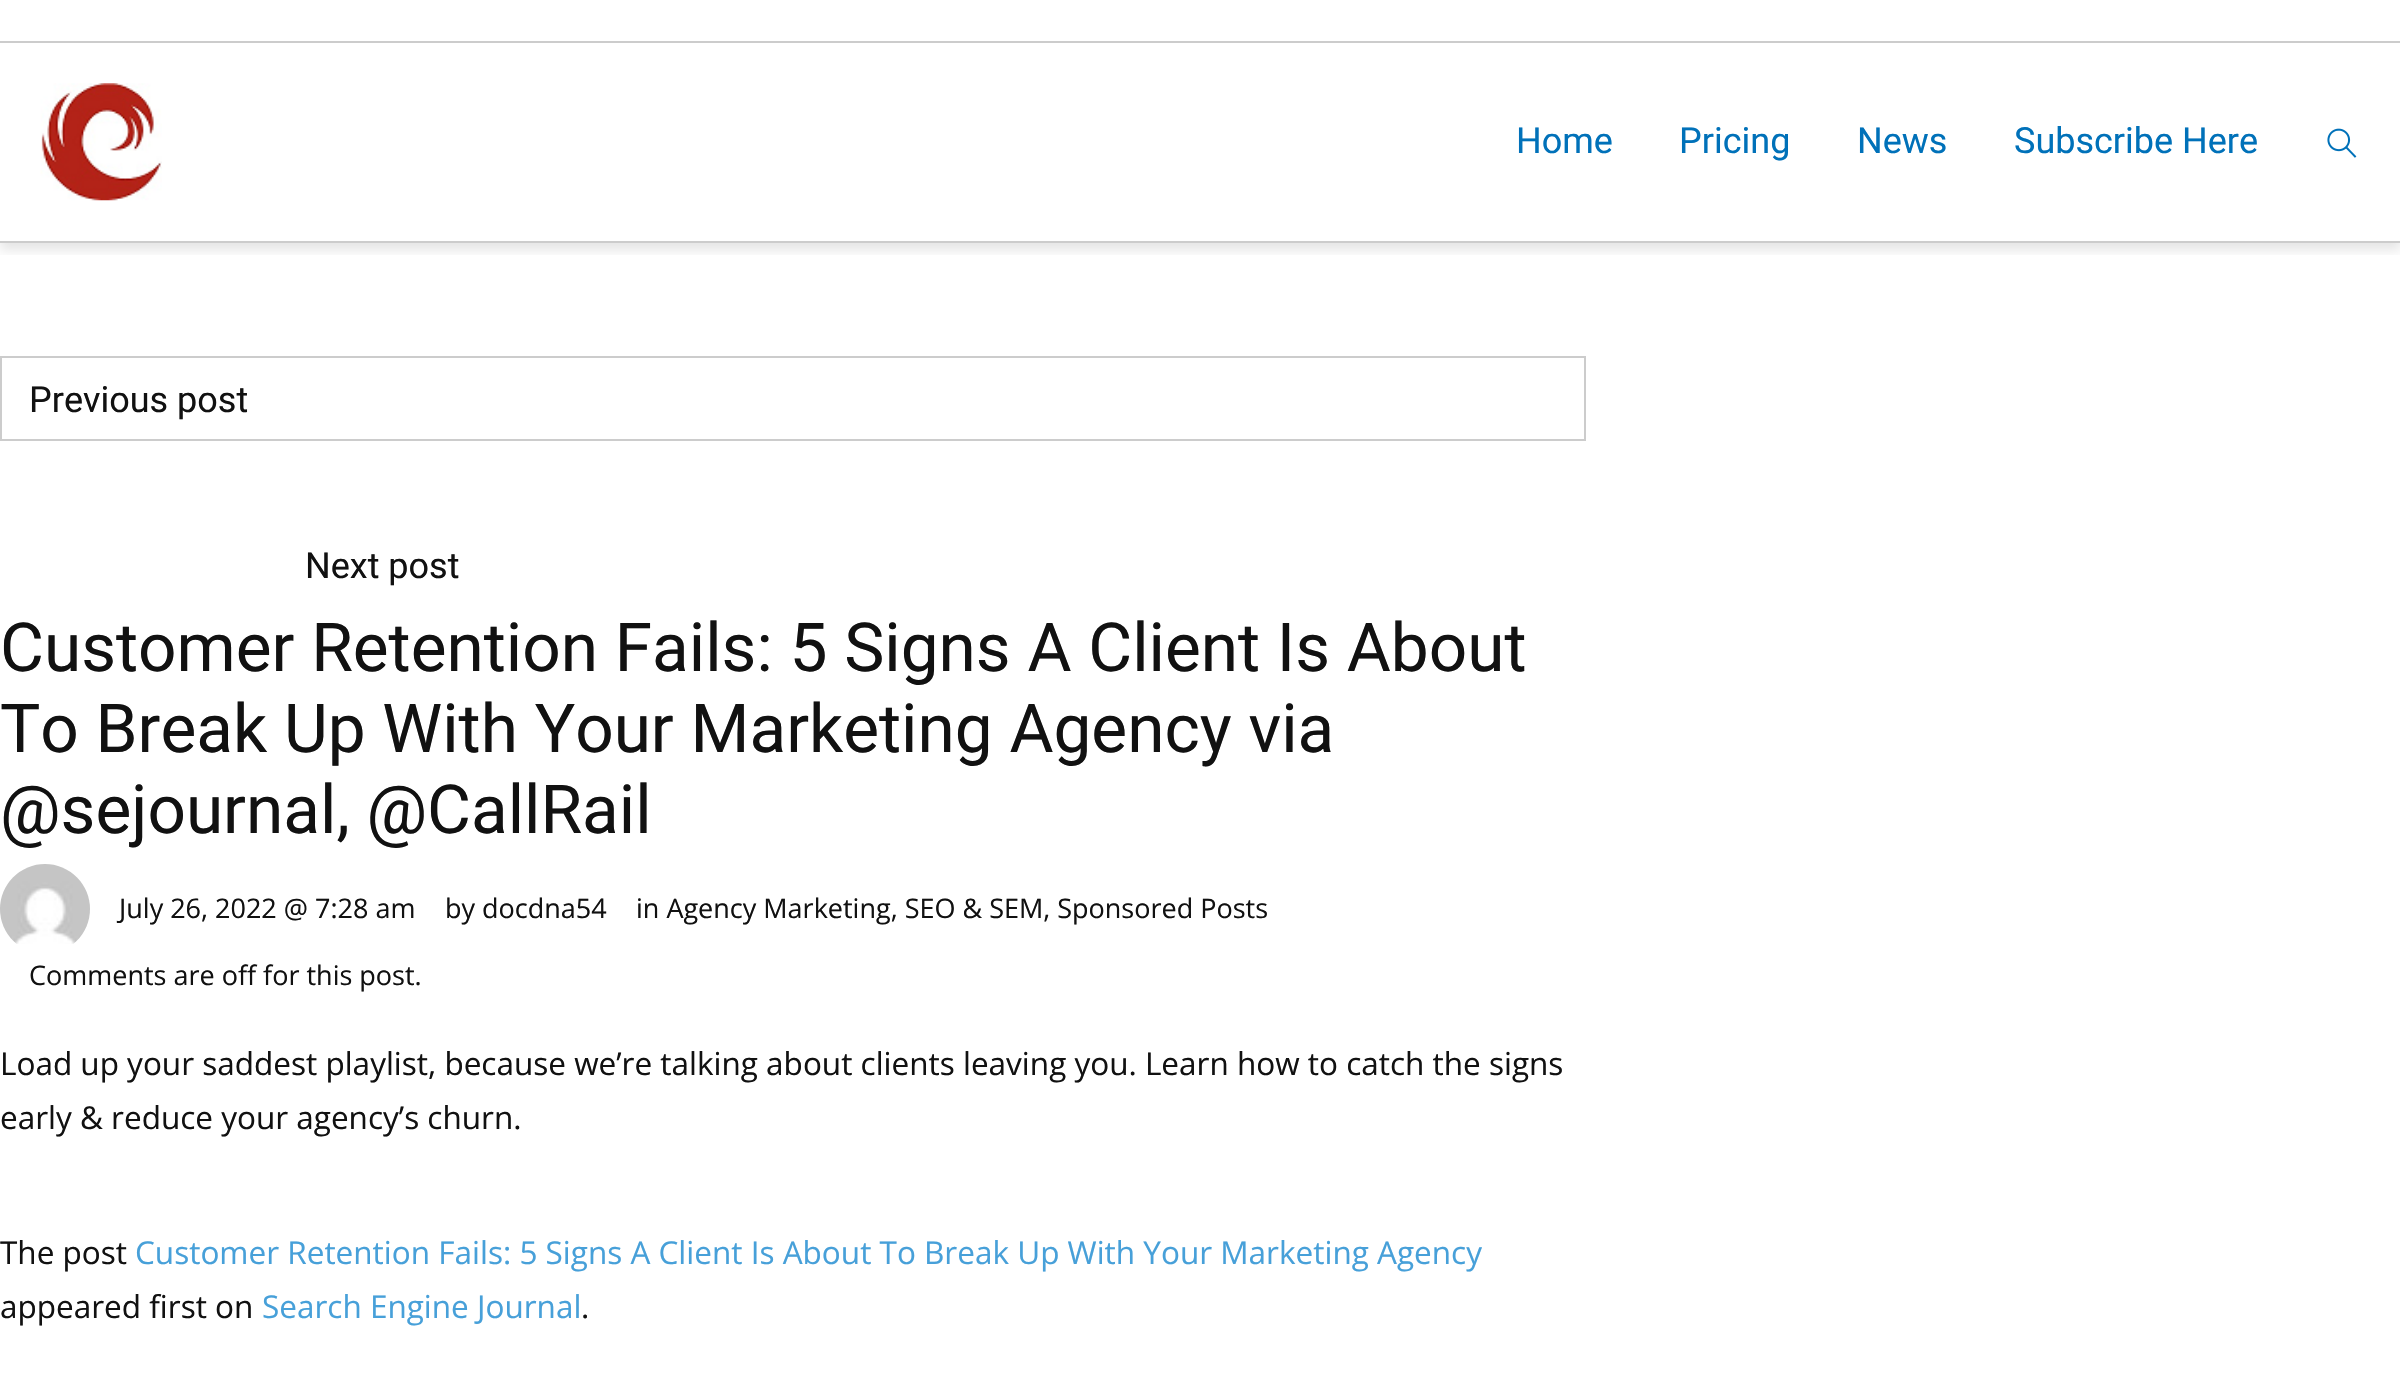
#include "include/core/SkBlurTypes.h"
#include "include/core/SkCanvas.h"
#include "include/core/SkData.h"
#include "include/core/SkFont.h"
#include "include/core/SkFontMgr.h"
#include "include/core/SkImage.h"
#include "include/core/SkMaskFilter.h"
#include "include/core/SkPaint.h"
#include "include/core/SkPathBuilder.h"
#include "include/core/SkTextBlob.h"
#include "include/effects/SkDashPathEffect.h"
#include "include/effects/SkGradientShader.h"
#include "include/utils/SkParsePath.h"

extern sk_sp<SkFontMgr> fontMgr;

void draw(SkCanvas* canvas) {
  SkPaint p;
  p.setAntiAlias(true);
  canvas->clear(SK_ColorWHITE);
  canvas->save();
  canvas->clipRect(SkRect::MakeLTRB(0, 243, 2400, 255));
  p.setColor(SkColorSetARGB(26, 0, 0, 0));
  p.setMaskFilter(SkMaskFilter::MakeBlur(kNormal_SkBlurStyle, 5.5f));
  canvas->drawRect(SkRect::MakeLTRB(0, 7, 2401, 250), p);
  p.setMaskFilter(nullptr);
  canvas->restore();
  p.setColor(SkColorSetRGB(204, 204, 204));
  canvas->drawRect(SkRect::MakeLTRB(0, 241, 2400, 243), p);
  canvas->drawRect(SkRect::MakeLTRB(0, 41, 2400, 43), p);
  canvas->drawImageRect(SkImages::DeferredFromEncodedData(SkData::MakeFromFileName("images/1.png")), SkRect::MakeLTRB(40, 83, 162, 201), SkSamplingOptions());
  canvas->drawImageRect(SkImages::DeferredFromEncodedData(SkData::MakeFromFileName("images/2.png")), SkRect::MakeLTRB(2327, 128, 2357, 158), SkSamplingOptions());
  p.setStyle(SkPaint::kStroke_Style);
  p.setStrokeWidth(2);
  canvas->drawRect(SkRect::MakeLTRB(1, 357, 1585, 440), p);
  canvas->drawImageRect(SkImages::DeferredFromEncodedData(SkData::MakeFromFileName("images/3.png")), SkRect::MakeLTRB(0, 864, 90, 944), SkSamplingOptions());
  SkFont font1(fontMgr->matchFamilyStyle("Roboto", SkFontStyle::Normal()), 36);
  font1.setSubpixel(true);
  p.setStyle(SkPaint::kFill_Style);
  p.setColor(SkColorSetRGB(0, 113, 185));
  canvas->drawString("Home", 1516, 153, font1, p);
  canvas->drawString("Pricing", 1679, 153, font1, p);
  canvas->drawString("News", 1857, 153, font1, p);
  canvas->drawString("Subscribe Here", 2014, 153, font1, p);
  p.setColor(SkColorSetRGB(17, 17, 17));
  canvas->drawString("Previous post", 29, 412, font1, p);
  canvas->drawString("Next post", 305, 578, font1, p);
  SkFont font2(fontMgr->matchFamilyStyle("Roboto", SkFontStyle::Normal()), 67.5f);
  font2.setSubpixel(true);
  canvas->drawString("Customer Retention Fails: 5 Signs A Client Is About", 0, 671, font2, p);
  canvas->drawString("To Break Up With Your Marketing Agency via", 0, 752, font2, p);
  canvas->drawString("@sejournal, @CallRail", 0, 833, font2, p);
  SkFont font3(fontMgr->matchFamilyStyle("Open Sans", SkFontStyle::Normal()), 27);
  font3.setSubpixel(true);
  canvas->drawString("July 26, 2022 @ 7:28 am", 119, 918, font3, p);
  canvas->drawString("by docdna54", 445, 918, font3, p);
  canvas->drawString("in Agency Marketing, SEO & SEM, Sponsored Posts", 636, 918, font3, p);
  canvas->drawString("Comments are off for this post.", 29, 985, font3, p);
  SkFont font4(fontMgr->matchFamilyStyle("Open Sans", SkFontStyle::Normal()), 31.5f);
  font4.setSubpixel(true);
  canvas->drawString("Load up your saddest playlist, because we’re talking about clients leaving you. Learn how to catch the signs", 0, 1075, font4, p);
  canvas->drawString("early & reduce your agency’s churn.", 0, 1129, font4, p);
  canvas->drawString("The post", 0, 1264, font4, p);
  p.setColor(SkColorSetRGB(71, 160, 217));
  canvas->drawString("Customer Retention Fails: 5 Signs A Client Is About To Break Up With Your Marketing Agency", 135, 1264, font4, p);
  p.setColor(SkColorSetRGB(17, 17, 17));
  canvas->drawString("appeared first on", 0, 1318, font4, p);
  p.setColor(SkColorSetRGB(71, 160, 217));
  canvas->drawString("Search Engine Journal", 262, 1318, font4, p);
  p.setColor(SkColorSetRGB(17, 17, 17));
  canvas->drawString(".", 581, 1318, font4, p);
}
